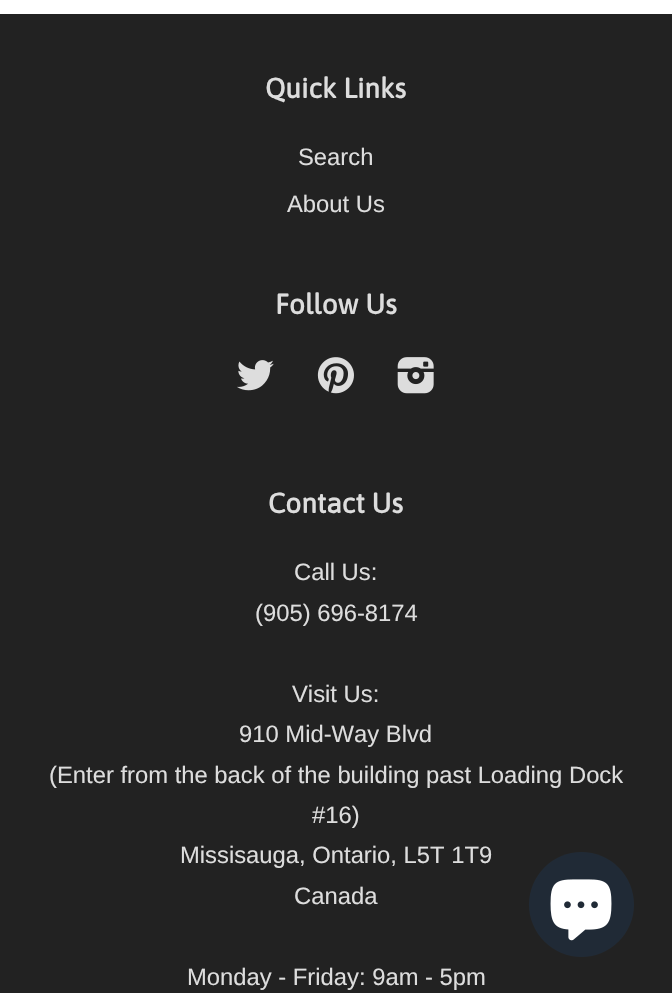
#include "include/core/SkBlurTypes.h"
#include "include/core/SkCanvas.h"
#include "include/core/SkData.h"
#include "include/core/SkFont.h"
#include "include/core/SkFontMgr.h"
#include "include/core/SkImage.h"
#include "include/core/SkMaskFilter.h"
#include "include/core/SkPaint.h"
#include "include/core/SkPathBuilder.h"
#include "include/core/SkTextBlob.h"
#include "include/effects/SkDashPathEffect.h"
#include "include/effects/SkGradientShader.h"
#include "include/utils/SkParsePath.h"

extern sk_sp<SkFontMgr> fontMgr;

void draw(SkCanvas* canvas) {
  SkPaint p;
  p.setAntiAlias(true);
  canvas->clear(SK_ColorWHITE);
  p.setColor(SkColorSetRGB(34, 34, 34));
  canvas->drawRect(SkRect::MakeLTRB(0, 14, 672, 993), p);
  canvas->drawImageRect(SkImages::DeferredFromEncodedData(SkData::MakeFromFileName("images/1.png")), SkRect::MakeLTRB(237, 360, 274, 391), SkSamplingOptions());
  canvas->drawImageRect(SkImages::DeferredFromEncodedData(SkData::MakeFromFileName("images/2.png")), SkRect::MakeLTRB(317, 357, 354, 394), SkSamplingOptions());
  canvas->drawImageRect(SkImages::DeferredFromEncodedData(SkData::MakeFromFileName("images/3.png")), SkRect::MakeLTRB(397, 357, 434, 394), SkSamplingOptions());
  p.setColor(SkColorSetRGB(32, 42, 54));
  canvas->drawCircle(581.5f, 904.5f, 52.5f, p);
  canvas->drawImageRect(SkImages::DeferredFromEncodedData(SkData::MakeFromFileName("images/4.png")), SkRect::MakeLTRB(550, 879, 612, 941), SkSamplingOptions());
  SkFont font1(fontMgr->matchFamilyStyle("Asap", SkFontStyle::Bold()), 28);
  font1.setSubpixel(true);
  p.setColor(SkColorSetRGB(221, 221, 221));
  canvas->drawString("Quick Links", 265, 98, font1, p);
  SkFont font2(fontMgr->matchFamilyStyle("Liberation Sans", SkFontStyle::Normal()), 23.8f);
  font2.setSubpixel(true);
  canvas->drawString("Search", 298, 165, font2, p);
  canvas->drawString("About Us", 287, 212, font2, p);
  canvas->drawString("Follow Us", 275, 314, font1, p);
  canvas->drawString("Contact Us", 268, 513, font1, p);
  canvas->drawString("Call Us:", 294, 580, font2, p);
  canvas->drawString("(905) 696-8174", 255, 621, font2, p);
  canvas->drawString("Visit Us:", 292, 702, font2, p);
  canvas->drawString("910 Mid-Way Blvd", 239, 742, font2, p);
  canvas->drawString("(Enter from the back of the building past Loading Dock", 49, 783, font2, p);
  canvas->drawString("#16)", 312, 823, font2, p);
  canvas->drawString("Missisauga, Ontario, L5T 1T9", 180, 863, font2, p);
  canvas->drawString("Canada", 294, 904, font2, p);
  canvas->drawString("Monday - Friday: 9am - 5pm", 187, 985, font2, p);
}
